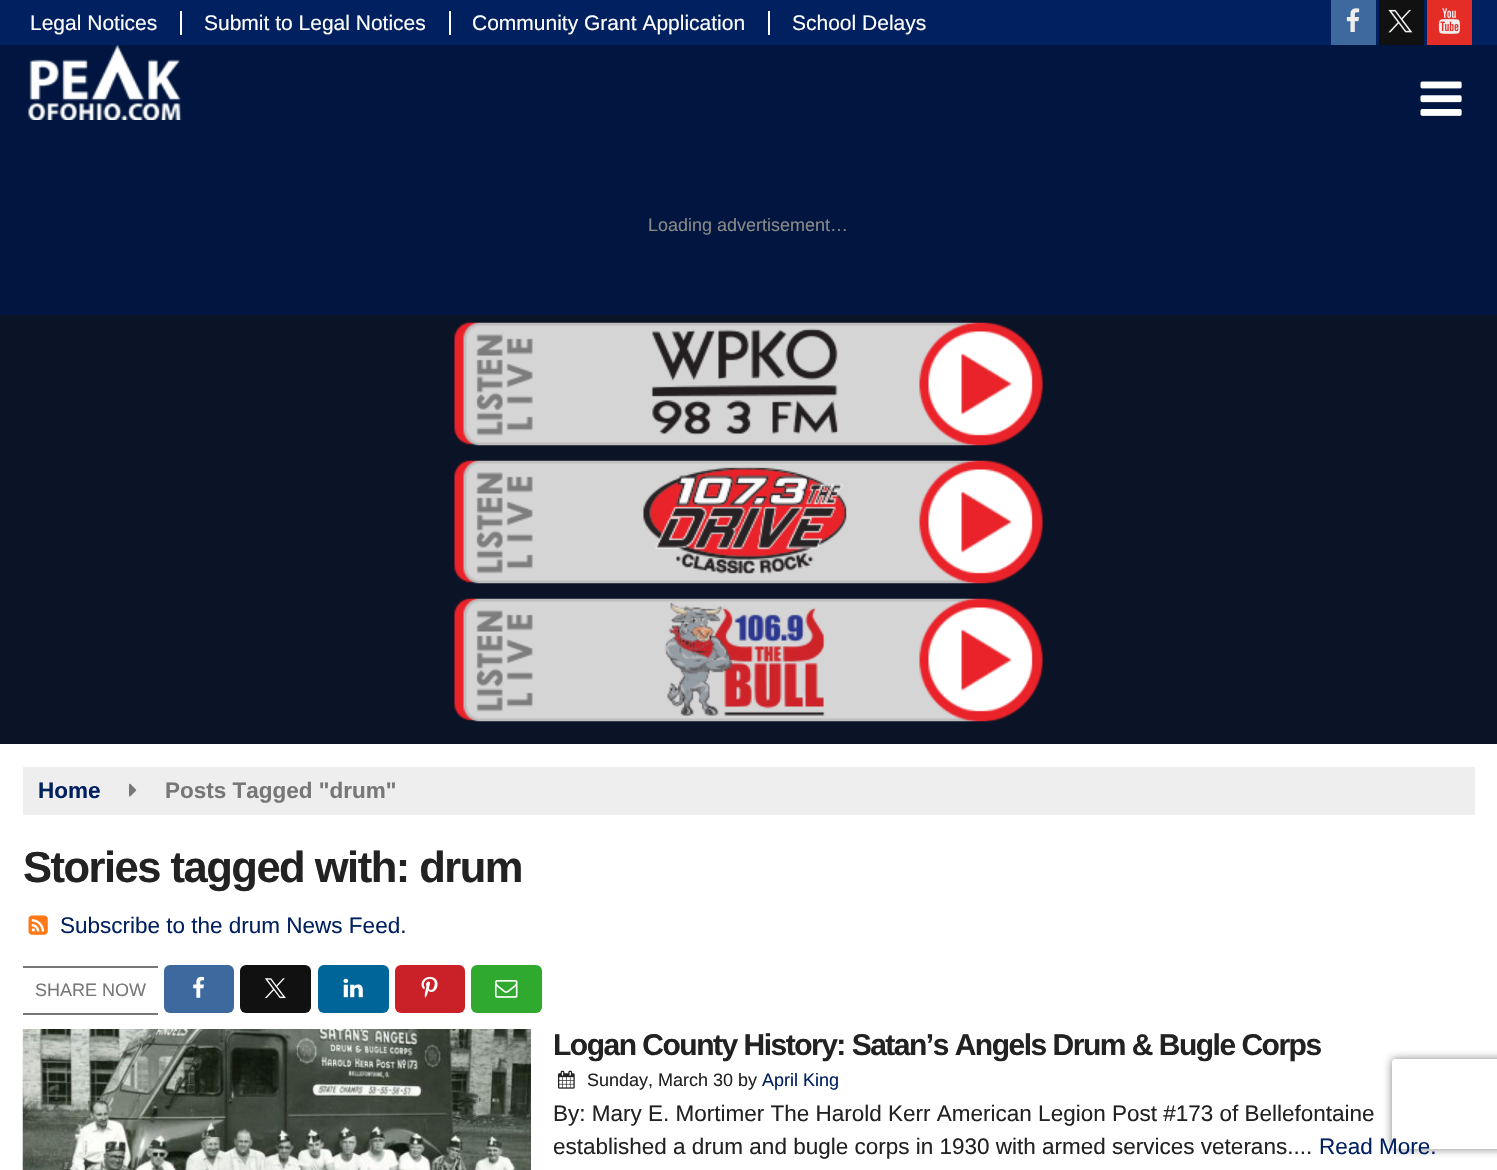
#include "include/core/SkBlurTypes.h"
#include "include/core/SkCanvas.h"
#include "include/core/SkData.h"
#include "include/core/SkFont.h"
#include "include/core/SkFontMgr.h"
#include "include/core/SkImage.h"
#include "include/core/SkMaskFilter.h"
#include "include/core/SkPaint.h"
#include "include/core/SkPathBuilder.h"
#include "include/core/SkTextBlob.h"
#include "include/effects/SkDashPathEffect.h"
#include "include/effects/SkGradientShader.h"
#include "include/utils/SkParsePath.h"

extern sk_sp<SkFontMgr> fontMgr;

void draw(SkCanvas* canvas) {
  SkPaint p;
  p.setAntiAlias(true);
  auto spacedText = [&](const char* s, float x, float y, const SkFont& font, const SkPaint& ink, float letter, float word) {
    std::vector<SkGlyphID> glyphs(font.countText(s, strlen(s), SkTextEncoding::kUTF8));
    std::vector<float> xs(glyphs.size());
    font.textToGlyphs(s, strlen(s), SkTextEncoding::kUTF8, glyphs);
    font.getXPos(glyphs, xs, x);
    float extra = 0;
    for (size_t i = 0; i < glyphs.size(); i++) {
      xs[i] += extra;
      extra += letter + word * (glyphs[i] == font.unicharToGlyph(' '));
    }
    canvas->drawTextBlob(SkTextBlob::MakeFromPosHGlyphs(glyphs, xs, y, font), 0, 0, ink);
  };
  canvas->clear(SK_ColorWHITE);
  p.setColor(SkColorSetRGB(1, 32, 95));
  canvas->drawRect(SkRect::MakeLTRB(0, 0, 1497, 45), p);
  p.setColor(SK_ColorWHITE);
  canvas->drawRect(SkRect::MakeLTRB(180, 11, 182, 35), p);
  canvas->drawRect(SkRect::MakeLTRB(449, 11, 451, 35), p);
  canvas->drawRect(SkRect::MakeLTRB(768, 11, 770, 35), p);
  p.setColor(SkColorSetRGB(61, 105, 158));
  canvas->drawRect(SkRect::MakeLTRB(1331, 0, 1376, 45), p);
  canvas->drawImageRect(SkImages::DeferredFromEncodedData(SkData::MakeFromFileName("images/1.png")), SkRect::MakeLTRB(1346, 8, 1360, 32), SkSamplingOptions());
  p.setColor(SkColorSetRGB(17, 17, 17));
  canvas->drawRect(SkRect::MakeLTRB(1379, 0, 1424, 45), p);
  canvas->drawImageRect(SkImages::DeferredFromEncodedData(SkData::MakeFromFileName("images/2.png")), SkRect::MakeLTRB(1388, 9, 1413, 33), SkSamplingOptions());
  p.setColor(SkColorSetRGB(229, 45, 39));
  canvas->drawRect(SkRect::MakeLTRB(1427, 0, 1472, 45), p);
  canvas->drawImageRect(SkImages::DeferredFromEncodedData(SkData::MakeFromFileName("images/3.png")), SkRect::MakeLTRB(1438, 8, 1460, 34), SkSamplingOptions());
  p.setColor(SkColorSetRGB(0, 21, 63));
  canvas->drawRect(SkRect::MakeLTRB(0, 45, 1497, 315), p);
  canvas->drawImageRect(SkImages::DeferredFromEncodedData(SkData::MakeFromFileName("images/4.png")), SkRect::MakeLTRB(28, 45, 182, 120), SkSamplingOptions());
  canvas->drawImageRect(SkImages::DeferredFromEncodedData(SkData::MakeFromFileName("images/5.png")), SkRect::MakeLTRB(1420, 81, 1462, 116), SkSamplingOptions());
  p.setColor(SkColorSetRGB(11, 20, 38));
  canvas->drawRect(SkRect::MakeLTRB(0, 315, 1497, 744), p);
  canvas->drawImageRect(SkImages::DeferredFromEncodedData(SkData::MakeFromFileName("images/6.png")), SkRect::MakeLTRB(454, 322, 1043, 446), SkSamplingOptions());
  canvas->drawImageRect(SkImages::DeferredFromEncodedData(SkData::MakeFromFileName("images/7.png")), SkRect::MakeLTRB(454, 460, 1043, 584), SkSamplingOptions());
  canvas->drawImageRect(SkImages::DeferredFromEncodedData(SkData::MakeFromFileName("images/8.png")), SkRect::MakeLTRB(454, 598, 1043, 722), SkSamplingOptions());
  p.setColor(SkColorSetRGB(238, 238, 238));
  canvas->drawRect(SkRect::MakeLTRB(23, 767, 1475, 815), p);
  canvas->drawImageRect(SkImages::DeferredFromEncodedData(SkData::MakeFromFileName("images/9.png")), SkRect::MakeLTRB(129, 783, 137, 797), SkSamplingOptions());
  canvas->drawImageRect(SkImages::DeferredFromEncodedData(SkData::MakeFromFileName("images/10.png")), SkRect::MakeLTRB(28, 915, 48, 935), SkSamplingOptions());
  p.setColor(SkColorSetRGB(119, 119, 119));
  canvas->drawRect(SkRect::MakeLTRB(23, 966, 158, 968), p);
  canvas->drawRect(SkRect::MakeLTRB(23, 1013, 158, 1015), p);
  p.setColor(SkColorSetRGB(61, 105, 158));
  canvas->drawRoundRect(SkRect::MakeLTRB(164, 965, 234, 1013), 6, 6, p);
  canvas->drawImageRect(SkImages::DeferredFromEncodedData(SkData::MakeFromFileName("images/11.png")), SkRect::MakeLTRB(193, 976, 205, 998), SkSamplingOptions());
  p.setColor(SkColorSetRGB(17, 17, 17));
  canvas->drawRoundRect(SkRect::MakeLTRB(240, 965, 311, 1013), 6, 6, p);
  canvas->drawImageRect(SkImages::DeferredFromEncodedData(SkData::MakeFromFileName("images/12.png")), SkRect::MakeLTRB(264, 978, 286, 999), SkSamplingOptions());
  p.setColor(SkColorSetRGB(0, 102, 153));
  canvas->drawRoundRect(SkRect::MakeLTRB(318, 965, 389, 1013), 6, 6, p);
  canvas->drawImageRect(SkImages::DeferredFromEncodedData(SkData::MakeFromFileName("images/13.png")), SkRect::MakeLTRB(343, 978, 363, 998), SkSamplingOptions());
  p.setColor(SkColorSetRGB(202, 32, 39));
  canvas->drawRoundRect(SkRect::MakeLTRB(395, 965, 465, 1013), 6, 6, p);
  canvas->drawImageRect(SkImages::DeferredFromEncodedData(SkData::MakeFromFileName("images/14.png")), SkRect::MakeLTRB(421, 976, 438, 998), SkSamplingOptions());
  p.setColor(SkColorSetRGB(47, 169, 46));
  canvas->drawRoundRect(SkRect::MakeLTRB(471, 965, 542, 1013), 6, 6, p);
  canvas->drawImageRect(SkImages::DeferredFromEncodedData(SkData::MakeFromFileName("images/15.png")), SkRect::MakeLTRB(495, 980, 518, 998), SkSamplingOptions());
  canvas->drawImageRect(SkImages::DeferredFromEncodedData(SkData::MakeFromFileName("images/16.png")), SkRect::MakeLTRB(22, 1029, 531, 1170), SkSamplingOptions());
  canvas->drawImageRect(SkImages::DeferredFromEncodedData(SkData::MakeFromFileName("images/17.png")), SkRect::MakeLTRB(558, 1070, 575, 1089), SkSamplingOptions());
  canvas->save();
  canvas->clipPath(SkPathBuilder(SkPathFillType::kEvenOdd).moveTo(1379, 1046).lineTo(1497, 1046).lineTo(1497, 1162).lineTo(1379, 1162).close().moveTo(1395, 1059).lineTo(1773, 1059).cubicTo(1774.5f, 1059, 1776, 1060.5f, 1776, 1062).lineTo(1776, 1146).cubicTo(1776, 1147.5f, 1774.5f, 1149, 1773, 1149).lineTo(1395, 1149).cubicTo(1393.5f, 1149, 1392, 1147.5f, 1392, 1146).lineTo(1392, 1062).cubicTo(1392, 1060.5f, 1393.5f, 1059, 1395, 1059).close().detach(), true);
  p.setColor(SkColorSetRGB(128, 128, 128));
  p.setMaskFilter(SkMaskFilter::MakeBlur(kNormal_SkBlurStyle, 4));
  canvas->drawRoundRect(SkRect::MakeLTRB(1392, 1059, 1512, 1149), 3, 3, p);
  p.setMaskFilter(nullptr);
  canvas->restore();
  SkFont font1(fontMgr->matchFamilyStyle("Liberation Sans", SkFontStyle::Normal()), 21);
  font1.setSubpixel(true);
  p.setColor(SK_ColorWHITE);
  canvas->drawString("Legal Notices", 30, 30, font1, p);
  canvas->drawString("Submit to Legal Notices", 204, 30, font1, p);
  canvas->drawString("Community Grant Application", 472, 30, font1, p);
  canvas->drawString("School Delays", 792, 30, font1, p);
  SkFont font2(fontMgr->matchFamilyStyle("Liberation Sans", SkFontStyle::Normal()), 18);
  font2.setSubpixel(true);
  p.setColor(SkColorSetRGB(136, 136, 136));
  canvas->drawString("Loading advertisement…", 648, 231, font2, p);
  SkFont font3(fontMgr->matchFamilyStyle("Liberation Sans", SkFontStyle::Bold()), 22.5f);
  font3.setSubpixel(true);
  p.setColor(SkColorSetRGB(1, 32, 95));
  canvas->drawString("Home", 38, 798, font3, p);
  p.setColor(SkColorSetRGB(119, 119, 119));
  canvas->drawString("Posts Tagged \"drum\"", 165, 798, font3, p);
  SkFont font4(fontMgr->matchFamilyStyle("Liberation Sans", SkFontStyle::Bold()), 43.5f);
  font4.setSubpixel(true);
  p.setColor(SkColorSetRGB(34, 34, 34));
  spacedText("Stories tagged with: drum", 23, 882, font4, p, -1.5f, 0);
  SkFont font5(fontMgr->matchFamilyStyle("Liberation Sans", SkFontStyle::Normal()), 22.5f);
  font5.setSubpixel(true);
  p.setColor(SkColorSetRGB(1, 32, 95));
  canvas->drawString("Subscribe to the drum News Feed.", 60, 933, font5, p);
  p.setColor(SkColorSetRGB(119, 119, 119));
  canvas->drawString("SHARE NOW", 35, 996, font2, p);
  SkFont font6(fontMgr->matchFamilyStyle("Liberation Sans", SkFontStyle::Bold()), 30);
  font6.setSubpixel(true);
  p.setColor(SkColorSetRGB(34, 34, 34));
  spacedText("Logan County History: Satan’s Angels Drum & Bugle Corps", 553, 1055, font6, p, -1.5f, 0);
  canvas->drawString("Sunday, March 30 by", 587, 1086, font2, p);
  p.setColor(SkColorSetRGB(1, 32, 95));
  canvas->drawString("April King", 762, 1086, font2, p);
  p.setColor(SkColorSetRGB(34, 34, 34));
  canvas->drawString("By: Mary E. Mortimer The Harold Kerr American Legion Post #173 of Bellefontaine", 553, 1121, font5, p);
  canvas->drawString("established a drum and bugle corps in 1930 with armed services veterans....", 553, 1154, font5, p);
  p.setColor(SkColorSetRGB(1, 32, 95));
  canvas->drawString("Read More.", 1319, 1154, font5, p);
}
